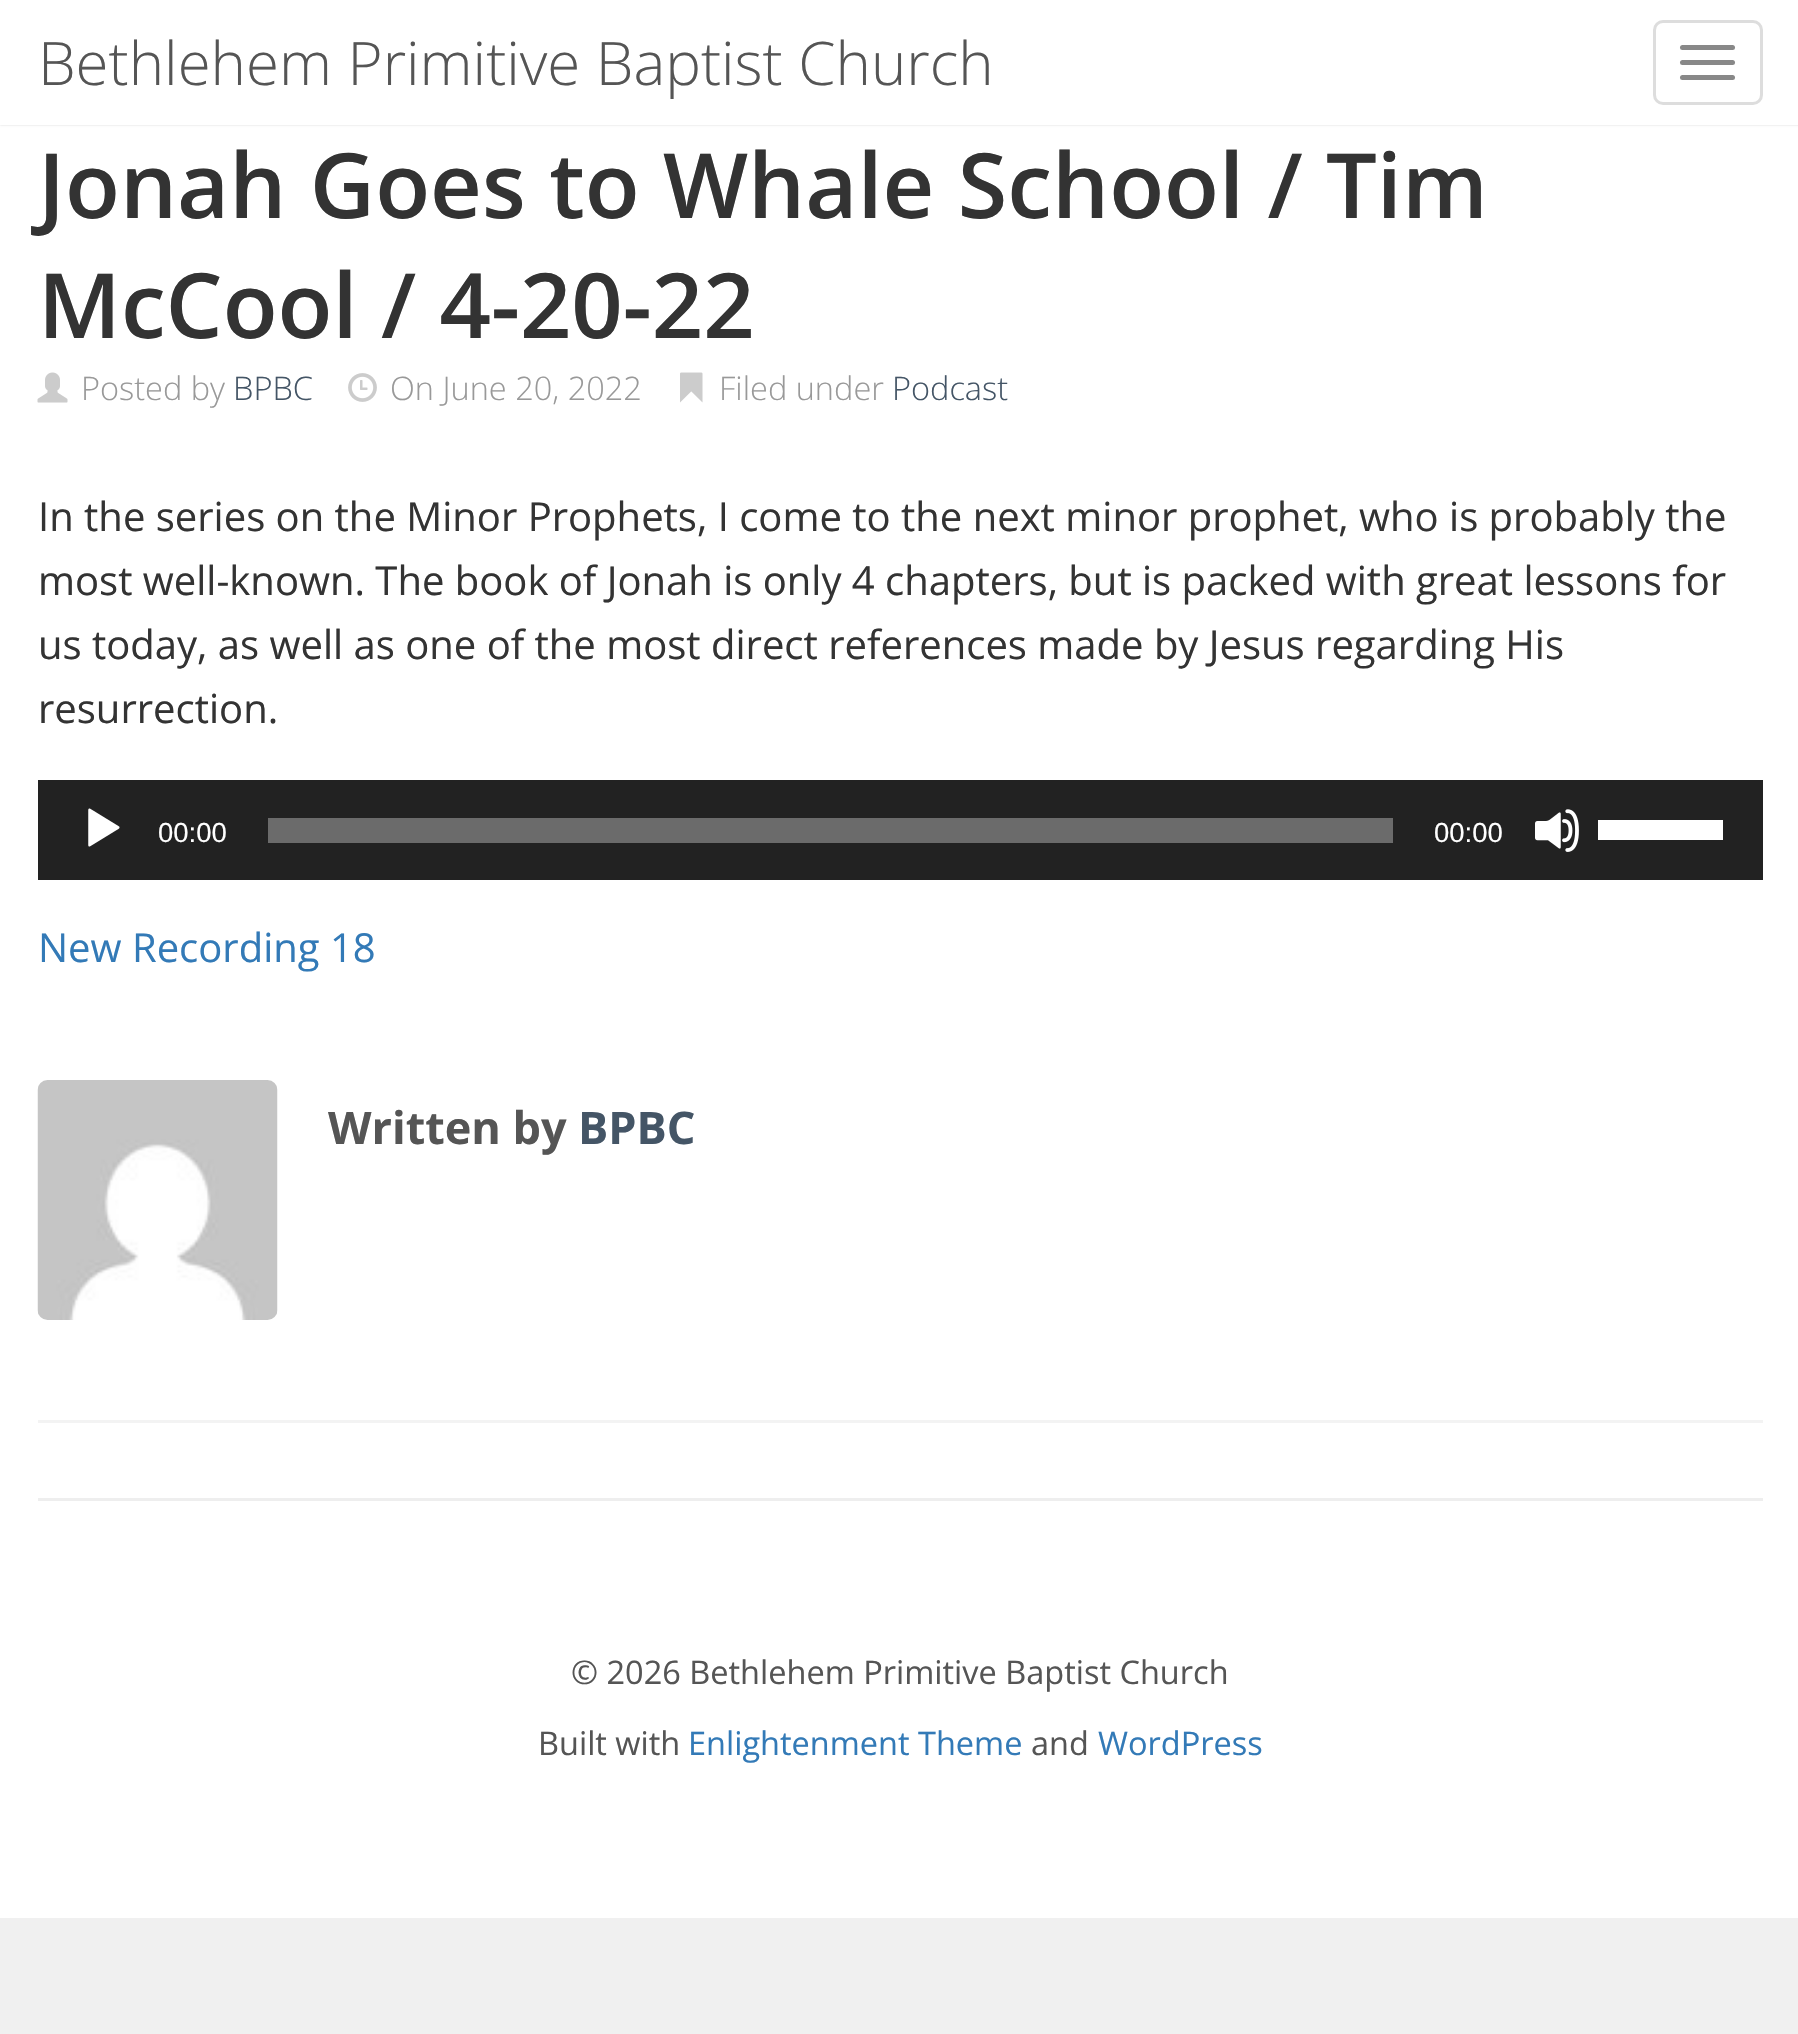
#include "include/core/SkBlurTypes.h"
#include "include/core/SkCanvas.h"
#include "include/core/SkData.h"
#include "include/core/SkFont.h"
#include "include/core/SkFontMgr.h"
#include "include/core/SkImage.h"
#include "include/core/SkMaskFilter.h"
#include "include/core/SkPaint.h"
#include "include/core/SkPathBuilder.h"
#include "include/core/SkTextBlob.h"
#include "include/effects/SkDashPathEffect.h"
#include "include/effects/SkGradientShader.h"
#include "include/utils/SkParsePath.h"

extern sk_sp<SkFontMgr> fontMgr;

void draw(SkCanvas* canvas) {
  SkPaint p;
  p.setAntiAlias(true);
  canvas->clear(SkColorSetRGB(240, 240, 240));
  p.setColor(SK_ColorWHITE);
  canvas->drawRect(SkRect::MakeLTRB(0, 125, 1798, 1918), p);
  p.setColor(SkColorSetARGB(38, 0, 0, 0));
  p.setMaskFilter(SkMaskFilter::MakeBlur(kNormal_SkBlurStyle, 1));
  canvas->drawRect(SkRect::MakeLTRB(0, 0, 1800, 125), p);
  p.setMaskFilter(nullptr);
  p.setColor(SK_ColorWHITE);
  canvas->drawRect(SkRect::MakeLTRB(0, 0, 1798, 125), p);
  p.setStyle(SkPaint::kStroke_Style);
  p.setStrokeWidth(3);
  p.setColor(SkColorSetRGB(221, 221, 221));
  canvas->drawRoundRect(SkRect::MakeLTRB(1654.5f, 21.5f, 1761.5f, 103.5f), 8.5f, 8.5f, p);
  p.setStyle(SkPaint::kFill_Style);
  p.setColor(SkColorSetRGB(136, 136, 136));
  canvas->drawRoundRect(SkRect::MakeLTRB(1680, 45, 1735, 50), 2.5f, 2.5f, p);
  canvas->drawRoundRect(SkRect::MakeLTRB(1680, 60, 1735, 65), 2.5f, 2.5f, p);
  canvas->drawRoundRect(SkRect::MakeLTRB(1680, 75, 1735, 80), 2.5f, 2.5f, p);
  p.setColor(SkColorSetRGB(243, 243, 243));
  canvas->drawRect(SkRect::MakeLTRB(38, 1420, 1763, 1423), p);
  canvas->drawImageRect(SkImages::DeferredFromEncodedData(SkData::MakeFromFileName("images/1.png")), SkRect::MakeLTRB(37, 372, 68, 403), SkSamplingOptions());
  canvas->drawImageRect(SkImages::DeferredFromEncodedData(SkData::MakeFromFileName("images/2.png")), SkRect::MakeLTRB(348, 373, 377, 402), SkSamplingOptions());
  canvas->drawImageRect(SkImages::DeferredFromEncodedData(SkData::MakeFromFileName("images/3.png")), SkRect::MakeLTRB(680, 372, 703, 403), SkSamplingOptions());
  p.setColor(SkColorSetRGB(34, 34, 34));
  canvas->drawRect(SkRect::MakeLTRB(38, 780, 1763, 880), p);
  canvas->drawImageRect(SkImages::DeferredFromEncodedData(SkData::MakeFromFileName("images/4.png")), SkRect::MakeLTRB(88, 808, 120, 847), SkSamplingOptions());
  p.setColor(SkColorSetRGB(107, 107, 107));
  canvas->drawRect(SkRect::MakeLTRB(268, 818, 1393, 843), p);
  canvas->drawImageRect(SkImages::DeferredFromEncodedData(SkData::MakeFromFileName("images/5.png")), SkRect::MakeLTRB(1535, 809, 1579, 852), SkSamplingOptions());
  p.setColor(SK_ColorWHITE);
  canvas->drawRect(SkRect::MakeLTRB(1598, 820, 1723, 840), p);
  canvas->drawImageRect(SkImages::DeferredFromEncodedData(SkData::MakeFromFileName("images/6.png")), SkRect::MakeLTRB(37, 1080, 278, 1320), SkSamplingOptions());
  p.setColor(SkColorSetRGB(238, 238, 238));
  canvas->drawRect(SkRect::MakeLTRB(38, 1498, 1763, 1501), p);
  SkFont font1(fontMgr->matchFamilyStyle("Open Sans", SkFontStyle(300, SkFontStyle::kNormal_Width, SkFontStyle::kUpright_Slant)), 60);
  font1.setSubpixel(true);
  p.setColor(SkColorSetRGB(85, 85, 85));
  canvas->drawString("Bethlehem Primitive Baptist Church", 38, 85, font1, p);
  SkFont font2(fontMgr->matchFamilyStyle("Open Sans", SkFontStyle(600, SkFontStyle::kNormal_Width, SkFontStyle::kUpright_Slant)), 90);
  font2.setSubpixel(true);
  p.setColor(SkColorSetRGB(51, 51, 51));
  canvas->drawString("Jonah Goes to Whale School / Tim", 38, 218, font2, p);
  canvas->drawString("McCool / 4-20-22", 38, 338, font2, p);
  SkFont font3(fontMgr->matchFamilyStyle("Open Sans", SkFontStyle(300, SkFontStyle::kNormal_Width, SkFontStyle::kUpright_Slant)), 32.5f);
  font3.setSubpixel(true);
  p.setColor(SkColorSetRGB(153, 153, 153));
  canvas->drawString("Posted by", 81, 400, font3, p);
  p.setColor(SkColorSetRGB(68, 85, 102));
  canvas->drawString("BPBC", 233, 400, font3, p);
  p.setColor(SkColorSetRGB(153, 153, 153));
  canvas->drawString("On June 20, 2022", 390, 400, font3, p);
  canvas->drawString("Filed under", 719, 400, font3, p);
  p.setColor(SkColorSetRGB(68, 85, 102));
  canvas->drawString("Podcast", 892, 400, font3, p);
  SkFont font4(fontMgr->matchFamilyStyle("Open Sans", SkFontStyle::Normal()), 40);
  font4.setSubpixel(true);
  p.setColor(SkColorSetRGB(51, 51, 51));
  canvas->drawString("In the series on the Minor Prophets, I come to the next minor prophet, who is probably the", 38, 531, font4, p);
  canvas->drawString("most well-known. The book of Jonah is only 4 chapters, but is packed with great lessons for", 38, 595, font4, p);
  canvas->drawString("us today, as well as one of the most direct references made by Jesus regarding His", 38, 659, font4, p);
  canvas->drawString("resurrection.", 38, 723, font4, p);
  SkFont font5(fontMgr->matchFamilyStyle("Liberation Sans", SkFontStyle::Normal()), 27.5f);
  font5.setSubpixel(true);
  p.setColor(SK_ColorWHITE);
  canvas->drawString("00:00", 158, 842, font5, p);
  canvas->drawString("00:00", 1434, 842, font5, p);
  p.setColor(SkColorSetRGB(51, 122, 183));
  canvas->drawString("New Recording 18", 38, 962, font4, p);
  canvas->save();
  canvas->clipRect(SkRect::MakeLTRB(328, 1080, 1763, 1178));
  SkFont font6(fontMgr->matchFamilyStyle("Open Sans", SkFontStyle::Bold()), 45);
  font6.setSubpixel(true);
  p.setColor(SkColorSetRGB(85, 85, 85));
  canvas->drawString("Written by", 328, 1144, font6, p);
  canvas->restore();
  p.setColor(SkColorSetRGB(68, 85, 102));
  canvas->drawString("BPBC", 578, 1144, font6, p);
  SkFont font7(fontMgr->matchFamilyStyle("Open Sans", SkFontStyle::Normal()), 32.5f);
  font7.setSubpixel(true);
  p.setColor(SkColorSetRGB(85, 85, 85));
  canvas->drawString("© 2026 Bethlehem Primitive Baptist Church", 571, 1684, font7, p);
  canvas->drawString("Built with", 538, 1755, font7, p);
  p.setColor(SkColorSetRGB(51, 122, 183));
  canvas->drawString("Enlightenment Theme", 688, 1755, font7, p);
  p.setColor(SkColorSetRGB(85, 85, 85));
  canvas->drawString("and", 1031, 1755, font7, p);
  p.setColor(SkColorSetRGB(51, 122, 183));
  canvas->drawString("WordPress", 1098, 1755, font7, p);
}
